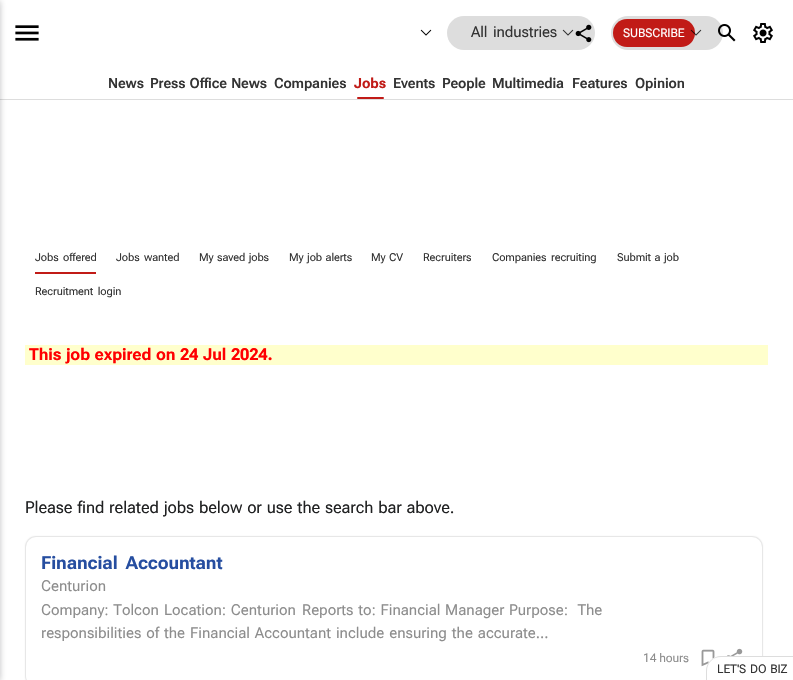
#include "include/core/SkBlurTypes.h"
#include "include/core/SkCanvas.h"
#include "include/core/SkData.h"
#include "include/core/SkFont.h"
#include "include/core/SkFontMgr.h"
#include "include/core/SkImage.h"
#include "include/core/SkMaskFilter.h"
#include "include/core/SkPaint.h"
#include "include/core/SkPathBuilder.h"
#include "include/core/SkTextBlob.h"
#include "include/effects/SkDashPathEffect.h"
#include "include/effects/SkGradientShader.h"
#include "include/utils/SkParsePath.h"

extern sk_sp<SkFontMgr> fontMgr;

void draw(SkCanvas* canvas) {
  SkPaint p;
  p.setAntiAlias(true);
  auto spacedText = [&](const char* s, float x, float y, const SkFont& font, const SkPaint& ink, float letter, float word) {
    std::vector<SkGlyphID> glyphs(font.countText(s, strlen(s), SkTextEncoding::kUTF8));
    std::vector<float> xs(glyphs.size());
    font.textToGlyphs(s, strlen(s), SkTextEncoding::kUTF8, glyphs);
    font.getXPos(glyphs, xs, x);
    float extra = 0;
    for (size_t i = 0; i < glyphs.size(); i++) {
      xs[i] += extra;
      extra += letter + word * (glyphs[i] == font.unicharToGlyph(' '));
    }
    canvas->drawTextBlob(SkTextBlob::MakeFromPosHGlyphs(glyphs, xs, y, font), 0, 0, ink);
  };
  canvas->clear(SK_ColorWHITE);
  p.setColor(SkColorSetRGB(221, 221, 221));
  canvas->drawRect(SkRect::MakeLTRB(0, 99, 793, 100), p);
  p.setColor(SkColorSetARGB(71, 32, 33, 36));
  p.setMaskFilter(SkMaskFilter::MakeBlur(kNormal_SkBlurStyle, 3));
  canvas->drawRect(SkRect::MakeLTRB(-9, 1, 0, 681), p);
  p.setMaskFilter(nullptr);
  canvas->drawImageRect(SkImages::DeferredFromEncodedData(SkData::MakeFromFileName("images/1.png")), SkRect::MakeLTRB(15, 25, 39, 41), SkSamplingOptions());
  canvas->drawImageRect(SkImages::DeferredFromEncodedData(SkData::MakeFromFileName("images/2.png")), SkRect::MakeLTRB(420, 29, 432, 36), SkSamplingOptions());
  p.setColor(SkColorSetRGB(221, 221, 221));
  canvas->drawRoundRect(SkRect::MakeLTRB(447, 16, 595, 50), 17, 17, p);
  canvas->drawImageRect(SkImages::DeferredFromEncodedData(SkData::MakeFromFileName("images/3.png")), SkRect::MakeLTRB(562, 29, 574, 36), SkSamplingOptions());
  canvas->drawRoundRect(SkRect::MakeLTRB(611, 16, 723, 50), 17, 17, p);
  p.setColor(SkColorSetRGB(193, 27, 23));
  canvas->drawRoundRect(SkRect::MakeLTRB(613, 19, 695, 47), 14, 14, p);
  canvas->drawImageRect(SkImages::DeferredFromEncodedData(SkData::MakeFromFileName("images/4.png")), SkRect::MakeLTRB(690, 29, 702, 36), SkSamplingOptions());
  canvas->drawImageRect(SkImages::DeferredFromEncodedData(SkData::MakeFromFileName("images/5.png")), SkRect::MakeLTRB(575, 24, 592, 43), SkSamplingOptions());
  canvas->drawImageRect(SkImages::DeferredFromEncodedData(SkData::MakeFromFileName("images/6.png")), SkRect::MakeLTRB(718, 24, 736, 42), SkSamplingOptions());
  canvas->drawImageRect(SkImages::DeferredFromEncodedData(SkData::MakeFromFileName("images/7.png")), SkRect::MakeLTRB(753, 23, 773, 43), SkSamplingOptions());
  canvas->drawRoundRect(SkRect::MakeLTRB(357, 97, 384, 99), 1, 1, p);
  canvas->drawRect(SkRect::MakeLTRB(35, 272, 96, 274), p);
  p.setColor(SkColorSetRGB(255, 255, 204));
  canvas->drawRect(SkRect::MakeLTRB(25, 345, 768, 365), p);
  p.setColor(SkColorSetARGB(26, 0, 0, 0));
  p.setMaskFilter(SkMaskFilter::MakeBlur(kNormal_SkBlurStyle, 0.5f));
  canvas->drawRoundRect(SkRect::MakeLTRB(25, 536, 763, 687), 11, 11, p);
  p.setMaskFilter(nullptr);
  p.setColor(SK_ColorWHITE);
  canvas->drawRoundRect(SkRect::MakeLTRB(26, 537, 762, 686), 10, 10, p);
  canvas->drawImageRect(SkImages::DeferredFromEncodedData(SkData::MakeFromFileName("images/8.png")), SkRect::MakeLTRB(701, 649, 715, 667), SkSamplingOptions());
  canvas->drawImageRect(SkImages::DeferredFromEncodedData(SkData::MakeFromFileName("images/9.png")), SkRect::MakeLTRB(727, 648, 743, 656), SkSamplingOptions());
  canvas->drawPath(SkPathBuilder().moveTo(721, 656).lineTo(793, 656).lineTo(793, 680).lineTo(706, 680).lineTo(706, 671).cubicTo(706, 662.5f, 712.5f, 656, 721, 656).close().detach(), p);
  p.setColor(SkColorSetRGB(221, 221, 221));
  canvas->drawPath(SkPathBuilder(SkPathFillType::kEvenOdd).moveTo(721, 656).lineTo(793, 656).lineTo(793, 680).lineTo(706, 680).lineTo(706, 671).cubicTo(706, 663, 713, 656, 721, 656).close().moveTo(721, 657).lineTo(793, 657).lineTo(793, 680).lineTo(707, 680).lineTo(707, 671).cubicTo(707, 663, 713, 657, 721, 657).close().detach(), p);
  SkFont font1(fontMgr->matchFamilyStyle("Roboto Flex", SkFontStyle::Normal()), 15);
  font1.setSubpixel(true);
  p.setColor(SkColorSetRGB(51, 51, 51));
  spacedText("All industries", 471, 37, font1, p, -0.1f, 2);
  SkFont font2(fontMgr->matchFamilyStyle("Roboto Flex", SkFontStyle::Normal()), 12);
  font2.setSubpixel(true);
  p.setColor(SK_ColorWHITE);
  spacedText("SUBSCRIBE", 623, 37, font2, p, -0.1f, 0);
  SkFont font3(fontMgr->matchFamilyStyle("Roboto Flex", SkFontStyle(600, SkFontStyle::kNormal_Width, SkFontStyle::kUpright_Slant)), 14);
  font3.setSubpixel(true);
  p.setColor(SkColorSetRGB(51, 51, 51));
  spacedText("News", 108, 88, font3, p, -0.1f, 0);
  spacedText("Press Office News", 150, 88, font3, p, -0.1f, 1);
  spacedText("Companies", 274, 88, font3, p, -0.1f, 0);
  SkFont font4(fontMgr->matchFamilyStyle("Roboto Flex", SkFontStyle::Bold()), 14);
  font4.setSubpixel(true);
  p.setColor(SkColorSetRGB(193, 27, 23));
  spacedText("Jobs", 354, 88, font4, p, -0.1f, 0);
  p.setColor(SkColorSetRGB(51, 51, 51));
  spacedText("Events", 393, 88, font3, p, -0.1f, 0);
  spacedText("People", 442, 88, font3, p, -0.1f, 0);
  spacedText("Multimedia", 492, 88, font3, p, -0.1f, 0);
  spacedText("Features", 572, 88, font3, p, -0.1f, 0);
  spacedText("Opinion", 635, 88, font3, p, -0.1f, 0);
  SkFont font5(fontMgr->matchFamilyStyle("Roboto Flex", SkFontStyle::Normal()), 11);
  font5.setSubpixel(true);
  spacedText("Jobs offered", 35, 261, font5, p, -0.1f, 2);
  spacedText("Jobs wanted", 116, 261, font5, p, -0.1f, 2);
  spacedText("My saved jobs", 199, 261, font5, p, -0.1f, 1);
  spacedText("My job alerts", 289, 261, font5, p, -0.1f, 1);
  spacedText("My CV", 371, 261, font5, p, -0.1f, 1);
  spacedText("Recruiters", 423, 261, font5, p, -0.1f, 0);
  spacedText("Companies recruiting", 492, 261, font5, p, -0.1f, 2);
  spacedText("Submit a job", 617, 261, font5, p, -0.1f, 1);
  spacedText("Recruitment login", 35, 295, font5, p, -0.1f, 2);
  SkFont font6(fontMgr->matchFamilyStyle("Roboto Flex", SkFontStyle::Bold()), 16.4f);
  font6.setSubpixel(true);
  p.setColor(SkColorSetRGB(255, 0, 0));
  spacedText("This job expired on 24 Jul 2024.", 29, 360, font6, p, -0.1f, 0.75f);
  SkFont font7(fontMgr->matchFamilyStyle("Roboto Flex", SkFontStyle::Normal()), 16.4f);
  font7.setSubpixel(true);
  p.setColor(SkColorSetRGB(32, 33, 34));
  spacedText("Please find related jobs below or use the search bar above.", 25, 513, font7, p, -0.1f, 1);
  SkFont font8(fontMgr->matchFamilyStyle("Roboto Flex", SkFontStyle::Bold()), 18);
  font8.setSubpixel(true);
  p.setColor(SkColorSetRGB(38, 78, 160));
  spacedText("Financial Accountant", 41, 569, font8, p, -0.1f, 4);
  p.setColor(SkColorSetRGB(141, 141, 141));
  canvas->drawString("Centurion", 41, 591, font1, p);
  spacedText("Company: Tolcon", 41, 615, font1, p, 0, 1);
  spacedText("Location: Centurion", 164, 615, font1, p, 0, 1);
  spacedText("Reports to: Financial Manager", 302, 615, font1, p, 0, 1);
  spacedText("Purpose:  The", 509, 615, font1, p, 0, 1);
  spacedText("responsibilities of the Financial Accountant include ensuring the accurate...", 41, 638, font1, p, 0, 1.25f);
  spacedText("14 hours", 643, 662, font2, p, -0.1f, 0);
  p.setColor(SkColorSetRGB(51, 51, 51));
  spacedText("LET'S DO BIZ", 717, 673, font2, p, -0.1f, 1);
}
